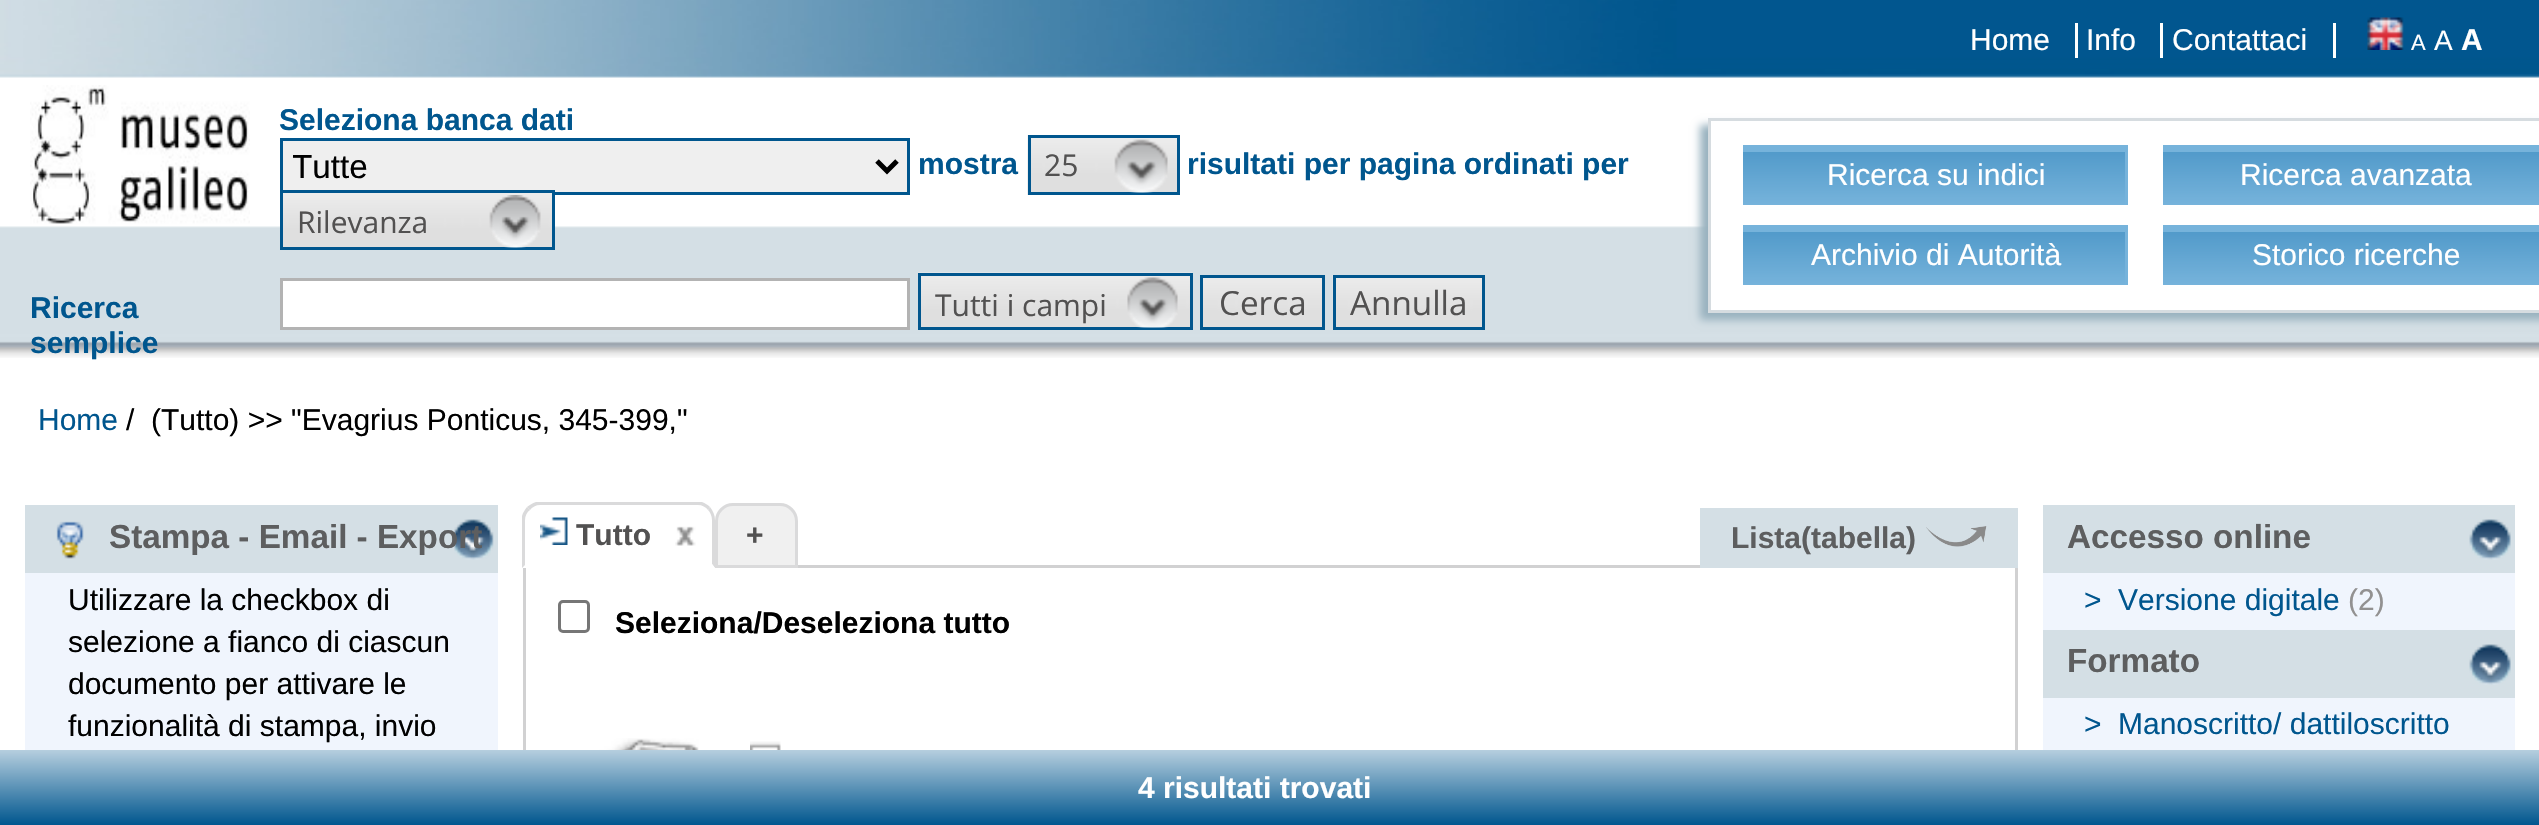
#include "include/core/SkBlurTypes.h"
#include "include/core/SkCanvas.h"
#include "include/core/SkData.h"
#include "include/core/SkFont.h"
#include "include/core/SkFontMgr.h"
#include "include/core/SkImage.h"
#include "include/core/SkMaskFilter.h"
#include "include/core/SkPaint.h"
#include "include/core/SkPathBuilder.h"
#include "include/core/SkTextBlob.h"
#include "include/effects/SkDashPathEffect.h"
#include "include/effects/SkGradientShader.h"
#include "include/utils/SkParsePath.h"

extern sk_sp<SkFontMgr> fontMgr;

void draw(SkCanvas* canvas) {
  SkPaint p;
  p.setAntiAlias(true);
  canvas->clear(SK_ColorWHITE);
  canvas->drawImageRect(SkImages::DeferredFromEncodedData(SkData::MakeFromFileName("images/1.png")), SkRect::MakeLTRB(0, 0, 2539, 358), SkSamplingOptions());
  p.setColor(SK_ColorWHITE);
  canvas->drawRect(SkRect::MakeLTRB(2075, 23, 2078, 58), p);
  canvas->drawRect(SkRect::MakeLTRB(2160, 23, 2163, 58), p);
  canvas->drawRect(SkRect::MakeLTRB(2333, 23, 2336, 58), p);
  canvas->drawImageRect(SkImages::DeferredFromEncodedData(SkData::MakeFromFileName("images/2.png")), SkRect::MakeLTRB(2367, 17, 2404, 50), SkSamplingOptions());
  canvas->drawImageRect(SkImages::DeferredFromEncodedData(SkData::MakeFromFileName("images/3.png")), SkRect::MakeLTRB(30, 85, 250, 224), SkSamplingOptions());
  p.setColor(SkColorSetRGB(239, 239, 239));
  canvas->drawRect(SkRect::MakeLTRB(281.5f, 139.5f, 908.5f, 193.5f), p);
  p.setStyle(SkPaint::kStroke_Style);
  p.setStrokeWidth(3);
  p.setColor(SkColorSetRGB(0, 86, 142));
  canvas->drawRect(SkRect::MakeLTRB(281.5f, 139.5f, 908.5f, 193.5f), p);
  p.setStrokeWidth(5);
  p.setColor(SK_ColorBLACK);
  canvas->drawPath(SkPathBuilder().moveTo(877, 161).lineTo(887, 171).lineTo(897, 161).detach(), p);
  canvas->drawImageRect(SkImages::DeferredFromEncodedData(SkData::MakeFromFileName("images/4.png")), SkRect::MakeLTRB(1027, 135, 1177, 195), SkSamplingOptions());
  p.setStrokeWidth(3);
  p.setColor(SkColorSetRGB(0, 86, 142));
  canvas->drawRect(SkRect::MakeLTRB(1029.5f, 136.5f, 1178.5f, 193.5f), p);
  canvas->drawImageRect(SkImages::DeferredFromEncodedData(SkData::MakeFromFileName("images/5.png")), SkRect::MakeLTRB(1114, 139, 1168, 193), SkSamplingOptions());
  canvas->drawImageRect(SkImages::DeferredFromEncodedData(SkData::MakeFromFileName("images/6.png")), SkRect::MakeLTRB(283, 193, 552, 247), SkSamplingOptions());
  canvas->drawRect(SkRect::MakeLTRB(281.5f, 191.5f, 553.5f, 248.5f), p);
  canvas->drawImageRect(SkImages::DeferredFromEncodedData(SkData::MakeFromFileName("images/7.png")), SkRect::MakeLTRB(489, 195, 541, 248), SkSamplingOptions());
  p.setStyle(SkPaint::kFill_Style);
  p.setColor(SK_ColorWHITE);
  canvas->drawRect(SkRect::MakeLTRB(281.5f, 279.5f, 908.5f, 328.5f), p);
  p.setStyle(SkPaint::kStroke_Style);
  p.setColor(SkColorSetRGB(179, 179, 179));
  canvas->drawRect(SkRect::MakeLTRB(281.5f, 279.5f, 908.5f, 328.5f), p);
  canvas->drawImageRect(SkImages::DeferredFromEncodedData(SkData::MakeFromFileName("images/8.png")), SkRect::MakeLTRB(918, 272, 1193, 327), SkSamplingOptions());
  p.setColor(SkColorSetRGB(0, 86, 142));
  canvas->drawRect(SkRect::MakeLTRB(919.5f, 274.5f, 1191.5f, 328.5f), p);
  canvas->drawImageRect(SkImages::DeferredFromEncodedData(SkData::MakeFromFileName("images/9.png")), SkRect::MakeLTRB(1127, 277, 1178, 328), SkSamplingOptions());
  canvas->drawImageRect(SkImages::DeferredFromEncodedData(SkData::MakeFromFileName("images/10.png")), SkRect::MakeLTRB(1203, 278, 1322, 327), SkSamplingOptions());
  canvas->drawRect(SkRect::MakeLTRB(1201.5f, 276.5f, 1323.5f, 328.5f), p);
  canvas->drawImageRect(SkImages::DeferredFromEncodedData(SkData::MakeFromFileName("images/11.png")), SkRect::MakeLTRB(1332, 275, 1482, 330), SkSamplingOptions());
  canvas->drawRect(SkRect::MakeLTRB(1334.5f, 276.5f, 1483.5f, 328.5f), p);
  p.setStyle(SkPaint::kFill_Style);
  p.setColor(SkColorSetRGB(153, 178, 191));
  p.setMaskFilter(SkMaskFilter::MakeBlur(kNormal_SkBlurStyle, 4));
  canvas->drawRect(SkRect::MakeLTRB(1700, 125, 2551, 320), p);
  p.setMaskFilter(nullptr);
  p.setColor(SK_ColorWHITE);
  canvas->drawRect(SkRect::MakeLTRB(1709.5f, 119.5f, 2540.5f, 311.5f), p);
  p.setStyle(SkPaint::kStroke_Style);
  p.setColor(SkColorSetRGB(214, 220, 224));
  canvas->drawRect(SkRect::MakeLTRB(1709.5f, 119.5f, 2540.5f, 311.5f), p);
  p.setStyle(SkPaint::kFill_Style);
  {
    const SkColor colors[] = {SkColorSetRGB(77, 151, 200), SkColorSetRGB(118, 179, 219)};
    const float stops[] = {0, 1};
    const SkPoint ends[] = {{1935, 145}, {1935, 205}};
    p.setShader(SkGradientShader::MakeLinear(ends, colors, stops, 2, SkTileMode::kClamp));
    p.setAlpha(255);
  }
  canvas->drawRect(SkRect::MakeLTRB(1743, 152, 2125, 205), p);
  canvas->save();
  canvas->clipRect(SkRect::MakeLTRB(1743, 145, 2128, 205));
  p.setShader(nullptr);
  p.setColor(SkColorSetRGB(118, 179, 219));
  canvas->drawPath(SkPathBuilder(SkPathFillType::kEvenOdd).moveTo(1495, -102).lineTo(2375, -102).lineTo(2375, 452).lineTo(1495, 452).close().moveTo(1740, 152).lineTo(2125, 152).lineTo(2125, 212).lineTo(1740, 212).close().detach(), p);
  canvas->restore();
  {
    const SkColor colors[] = {SkColorSetRGB(77, 151, 200), SkColorSetRGB(118, 179, 219)};
    const float stops[] = {0, 1};
    const SkPoint ends[] = {{2355, 145}, {2355, 205}};
    p.setShader(SkGradientShader::MakeLinear(ends, colors, stops, 2, SkTileMode::kClamp));
    p.setAlpha(255);
  }
  canvas->drawRect(SkRect::MakeLTRB(2163, 152, 2539, 205), p);
  canvas->save();
  canvas->clipRect(SkRect::MakeLTRB(2163, 145, 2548, 205));
  p.setShader(nullptr);
  p.setColor(SkColorSetRGB(118, 179, 219));
  canvas->drawPath(SkPathBuilder(SkPathFillType::kEvenOdd).moveTo(1915, -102).lineTo(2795, -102).lineTo(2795, 452).lineTo(1915, 452).close().moveTo(2160, 152).lineTo(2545, 152).lineTo(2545, 212).lineTo(2160, 212).close().detach(), p);
  canvas->restore();
  {
    const SkColor colors[] = {SkColorSetRGB(77, 151, 200), SkColorSetRGB(118, 179, 219)};
    const float stops[] = {0, 1};
    const SkPoint ends[] = {{1935, 225}, {1935, 285}};
    p.setShader(SkGradientShader::MakeLinear(ends, colors, stops, 2, SkTileMode::kClamp));
    p.setAlpha(255);
  }
  canvas->drawRect(SkRect::MakeLTRB(1743, 232, 2125, 285), p);
  canvas->save();
  canvas->clipRect(SkRect::MakeLTRB(1743, 225, 2128, 285));
  p.setShader(nullptr);
  p.setColor(SkColorSetRGB(118, 179, 219));
  canvas->drawPath(SkPathBuilder(SkPathFillType::kEvenOdd).moveTo(1495, -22).lineTo(2375, -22).lineTo(2375, 532).lineTo(1495, 532).close().moveTo(1740, 232).lineTo(2125, 232).lineTo(2125, 292).lineTo(1740, 292).close().detach(), p);
  canvas->restore();
  {
    const SkColor colors[] = {SkColorSetRGB(77, 151, 200), SkColorSetRGB(118, 179, 219)};
    const float stops[] = {0, 1};
    const SkPoint ends[] = {{2355, 225}, {2355, 285}};
    p.setShader(SkGradientShader::MakeLinear(ends, colors, stops, 2, SkTileMode::kClamp));
    p.setAlpha(255);
  }
  canvas->drawRect(SkRect::MakeLTRB(2163, 232, 2539, 285), p);
  canvas->save();
  canvas->clipRect(SkRect::MakeLTRB(2163, 225, 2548, 285));
  p.setShader(nullptr);
  p.setColor(SkColorSetRGB(118, 179, 219));
  canvas->drawPath(SkPathBuilder(SkPathFillType::kEvenOdd).moveTo(1915, -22).lineTo(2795, -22).lineTo(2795, 532).lineTo(1915, 532).close().moveTo(2160, 232).lineTo(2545, 232).lineTo(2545, 292).lineTo(2160, 292).close().detach(), p);
  canvas->restore();
  p.setColor(SkColorSetRGB(240, 245, 253));
  canvas->drawRect(SkRect::MakeLTRB(25, 573, 498, 750), p);
  p.setColor(SkColorSetRGB(212, 223, 229));
  canvas->drawRect(SkRect::MakeLTRB(25, 505, 498, 573), p);
  canvas->drawImageRect(SkImages::DeferredFromEncodedData(SkData::MakeFromFileName("images/12.png")), SkRect::MakeLTRB(451, 519, 494, 560), SkSamplingOptions());
  canvas->drawImageRect(SkImages::DeferredFromEncodedData(SkData::MakeFromFileName("images/13.png")), SkRect::MakeLTRB(56, 521, 84, 559), SkSamplingOptions());
  p.setStyle(SkPaint::kStroke_Style);
  p.setColor(SkColorSetRGB(209, 209, 210));
  canvas->drawRect(SkRect::MakeLTRB(524.5f, 566.5f, 2016.5f, 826.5f), p);
  p.setStyle(SkPaint::kFill_Style);
  p.setColor(SK_ColorWHITE);
  canvas->drawPath(SkPathBuilder().moveTo(541, 503).lineTo(697, 503).cubicTo(707, 503, 715, 511, 715, 521).lineTo(715, 568).lineTo(523, 568).lineTo(523, 521).cubicTo(523, 511, 531, 503, 541, 503).close().detach(), p);
  p.setColor(SkColorSetRGB(218, 218, 219));
  canvas->drawPath(SkPathBuilder().moveTo(540, 505).cubicTo(536, 505, 532, 507, 530, 510).lineTo(527, 507).cubicTo(530, 505, 532, 503, 536, 502).lineTo(702, 502).cubicTo(705, 503, 708, 505, 710, 507).lineTo(708, 510).cubicTo(706, 507, 702, 505, 698, 505).close().detach(), p);
  canvas->drawPath(SkPathBuilder().moveTo(715, 568).lineTo(715, 520).cubicTo(715, 515, 713, 511, 710, 507).lineTo(708, 510).cubicTo(710, 512, 712, 516, 712, 520).lineTo(712, 564).close().detach(), p);
  p.setColor(SK_ColorWHITE);
  canvas->drawPath(SkPathBuilder().moveTo(715, 568).lineTo(712, 564).lineTo(712, 565).lineTo(525, 565).lineTo(522, 568).close().detach(), p);
  p.setColor(SkColorSetRGB(218, 218, 219));
  canvas->drawPath(SkPathBuilder().moveTo(522, 568).lineTo(522, 516).cubicTo(523, 512, 525, 510, 527, 507).lineTo(530, 510).cubicTo(527, 512, 525, 516, 525, 520).lineTo(525, 565).close().detach(), p);
  canvas->drawImageRect(SkImages::DeferredFromEncodedData(SkData::MakeFromFileName("images/14.png")), SkRect::MakeLTRB(540, 517, 568, 545), SkSamplingOptions());
  canvas->drawImageRect(SkImages::DeferredFromEncodedData(SkData::MakeFromFileName("images/15.png")), SkRect::MakeLTRB(675, 526, 696, 546), SkSamplingOptions());
  p.setColor(SkColorSetRGB(240, 240, 240));
  canvas->drawPath(SkPathBuilder().moveTo(733, 504.5f).lineTo(780, 504.5f).cubicTo(789, 504.5f, 796.5f, 512, 796.5f, 521).lineTo(796.5f, 566.5f).lineTo(716.5f, 566.5f).lineTo(716.5f, 521).cubicTo(716.5f, 512, 724, 504.5f, 733, 504.5f).close().detach(), p);
  p.setStyle(SkPaint::kStroke_Style);
  p.setColor(SkColorSetRGB(218, 218, 219));
  canvas->drawPath(SkPathBuilder().moveTo(733, 504.5f).lineTo(780, 504.5f).cubicTo(789, 504.5f, 796.5f, 512, 796.5f, 521).lineTo(796.5f, 566.5f).lineTo(716.5f, 566.5f).lineTo(716.5f, 521).cubicTo(716.5f, 512, 724, 504.5f, 733, 504.5f).close().detach(), p);
  p.setStyle(SkPaint::kFill_Style);
  p.setColor(SkColorSetRGB(212, 223, 229));
  canvas->drawRect(SkRect::MakeLTRB(1700, 508, 2018, 568), p);
  canvas->drawImageRect(SkImages::DeferredFromEncodedData(SkData::MakeFromFileName("images/16.png")), SkRect::MakeLTRB(1926, 526, 1987, 547), SkSamplingOptions());
  p.setStyle(SkPaint::kStroke_Style);
  p.setColor(SkColorSetRGB(118, 118, 118));
  canvas->drawRoundRect(SkRect::MakeLTRB(559.5f, 601.5f, 588.5f, 631.5f), 3.5f, 3.5f, p);
  canvas->drawImageRect(SkImages::DeferredFromEncodedData(SkData::MakeFromFileName("images/17.png")), SkRect::MakeLTRB(575, 738, 699, 750), SkSamplingOptions());
  canvas->drawImageRect(SkImages::DeferredFromEncodedData(SkData::MakeFromFileName("images/18.png")), SkRect::MakeLTRB(750, 741, 781, 750), SkSamplingOptions());
  p.setStyle(SkPaint::kFill_Style);
  {
    const SkColor colors[] = {SK_ColorWHITE, SkColorSetRGB(0, 86, 142)};
    const float stops[] = {0, 1};
    const SkPoint ends[] = {{1270, 720}, {1270, 825}};
    p.setShader(SkGradientShader::MakeLinear(ends, colors, stops, 2, SkTileMode::kClamp));
    p.setAlpha(255);
  }
  canvas->drawRect(SkRect::MakeLTRB(0, 750, 2539, 825), p);
  p.setShader(nullptr);
  p.setColor(SkColorSetRGB(240, 245, 253));
  canvas->drawRect(SkRect::MakeLTRB(2043, 573, 2515, 630), p);
  p.setColor(SkColorSetRGB(212, 223, 229));
  canvas->drawRect(SkRect::MakeLTRB(2043, 505, 2515, 573), p);
  canvas->drawImageRect(SkImages::DeferredFromEncodedData(SkData::MakeFromFileName("images/19.png")), SkRect::MakeLTRB(2469, 519, 2511, 560), SkSamplingOptions());
  p.setColor(SkColorSetRGB(240, 245, 253));
  canvas->drawRect(SkRect::MakeLTRB(2043, 698, 2515, 750), p);
  p.setColor(SkColorSetRGB(212, 223, 229));
  canvas->drawRect(SkRect::MakeLTRB(2043, 630, 2515, 698), p);
  canvas->drawImageRect(SkImages::DeferredFromEncodedData(SkData::MakeFromFileName("images/19.png")), SkRect::MakeLTRB(2469, 644, 2511, 685), SkSamplingOptions());
  SkFont font1(fontMgr->matchFamilyStyle("Liberation Sans", SkFontStyle::Normal()), 30);
  font1.setSubpixel(true);
  p.setColor(SK_ColorWHITE);
  canvas->drawString("Home", 1970, 50, font1, p);
  canvas->drawString("Info", 2086, 50, font1, p);
  canvas->drawString("Contattaci", 2172, 50, font1, p);
  SkFont font2(fontMgr->matchFamilyStyle("Liberation Sans", SkFontStyle::Normal()), 22);
  font2.setSubpixel(true);
  canvas->drawString("A", 2411, 50, font2, p);
  SkFont font3(fontMgr->matchFamilyStyle("Liberation Sans", SkFontStyle::Normal()), 28);
  font3.setSubpixel(true);
  canvas->drawString("A", 2434, 50, font3, p);
  SkFont font4(fontMgr->matchFamilyStyle("Liberation Sans", SkFontStyle::Bold()), 30);
  font4.setSubpixel(true);
  canvas->drawString("A", 2461, 50, font4, p);
  p.setColor(SkColorSetRGB(0, 86, 142));
  canvas->drawString("Seleziona banca dati", 279, 130, font4, p);
  canvas->save();
  canvas->clipRect(SkRect::MakeLTRB(293, 145, 868, 188));
  SkFont font5(fontMgr->matchFamilyStyle("Liberation Sans", SkFontStyle::Normal()), 33.25f);
  font5.setSubpixel(true);
  p.setColor(SK_ColorBLACK);
  canvas->drawString("Tutte", 292, 178, font5, p);
  canvas->restore();
  p.setColor(SkColorSetRGB(0, 86, 142));
  canvas->drawString("mostra", 918, 174, font4, p);
  SkFont font6(fontMgr->matchFamilyStyle("Open Sans", SkFontStyle::Normal()), 30);
  font6.setSubpixel(true);
  p.setColor(SkColorSetRGB(82, 81, 81));
  canvas->drawString("25", 1044, 176, font6, p);
  p.setColor(SkColorSetRGB(0, 86, 142));
  canvas->drawString("risultati per pagina ordinati per", 1187, 174, font4, p);
  p.setColor(SkColorSetRGB(82, 81, 81));
  canvas->drawString("Rilevanza", 297, 233, font6, p);
  p.setColor(SkColorSetRGB(0, 86, 142));
  canvas->drawString("Ricerca", 30, 318, font4, p);
  canvas->drawString("semplice", 30, 353, font4, p);
  p.setColor(SkColorSetRGB(82, 81, 81));
  canvas->drawString("Tutti i campi", 935, 316, font6, p);
  SkFont font7(fontMgr->matchFamilyStyle("Open Sans", SkFontStyle::Normal()), 33.25f);
  font7.setSubpixel(true);
  canvas->drawString("Cerca", 1219, 315, font7, p);
  canvas->drawString("Annulla", 1350, 315, font7, p);
  p.setColor(SK_ColorWHITE);
  canvas->drawString("Ricerca su indici", 1827, 185, font1, p);
  canvas->drawString("Ricerca avanzata", 2240, 185, font1, p);
  canvas->drawString("Archivio di Autorità", 1811, 265, font1, p);
  canvas->drawString("Storico ricerche", 2252, 265, font1, p);
  p.setColor(SkColorSetRGB(0, 86, 142));
  canvas->drawString("Home", 38, 430, font1, p);
  p.setColor(SK_ColorBLACK);
  canvas->drawString("/", 126, 430, font1, p);
  canvas->drawString("(Tutto) >> \"Evagrius Ponticus, 345-399,\"", 151, 430, font1, p);
  SkFont font8(fontMgr->matchFamilyStyle("Liberation Sans", SkFontStyle::Bold()), 33.25f);
  font8.setSubpixel(true);
  p.setColor(SkColorSetRGB(93, 94, 95));
  canvas->drawString("Stampa - Email - Export", 109, 548, font8, p);
  p.setColor(SK_ColorBLACK);
  canvas->drawString("Utilizzare la checkbox di", 68, 610, font1, p);
  canvas->drawString("selezione a fianco di ciascun", 68, 652, font1, p);
  canvas->drawString("documento per attivare le", 68, 694, font1, p);
  canvas->drawString("funzionalità di stampa, invio", 68, 736, font1, p);
  p.setColor(SkColorSetRGB(82, 81, 81));
  canvas->drawString("Tutto", 576, 545, font4, p);
  canvas->drawString("+", 746, 545, font4, p);
  p.setColor(SkColorSetRGB(93, 94, 95));
  canvas->drawString("Lista(tabella)", 1731, 548, font4, p);
  p.setColor(SK_ColorBLACK);
  canvas->drawString("Seleziona/Deseleziona tutto", 615, 633, font4, p);
  p.setColor(SK_ColorWHITE);
  canvas->drawString("4 risultati trovati", 1138, 798, font4, p);
  p.setColor(SkColorSetRGB(93, 94, 95));
  canvas->drawString("Accesso online", 2067, 548, font8, p);
  p.setColor(SkColorSetRGB(0, 86, 142));
  canvas->drawString(">", 2084, 610, font1, p);
  canvas->drawString("Versione digitale", 2118, 610, font1, p);
  p.setColor(SkColorSetRGB(146, 145, 145));
  canvas->drawString("(2)", 2348, 610, font1, p);
  p.setColor(SkColorSetRGB(93, 94, 95));
  canvas->drawString("Formato", 2067, 672, font8, p);
  p.setColor(SkColorSetRGB(0, 86, 142));
  canvas->drawString(">", 2084, 734, font1, p);
  canvas->drawString("Manoscritto/ dattiloscritto", 2118, 734, font1, p);
}
